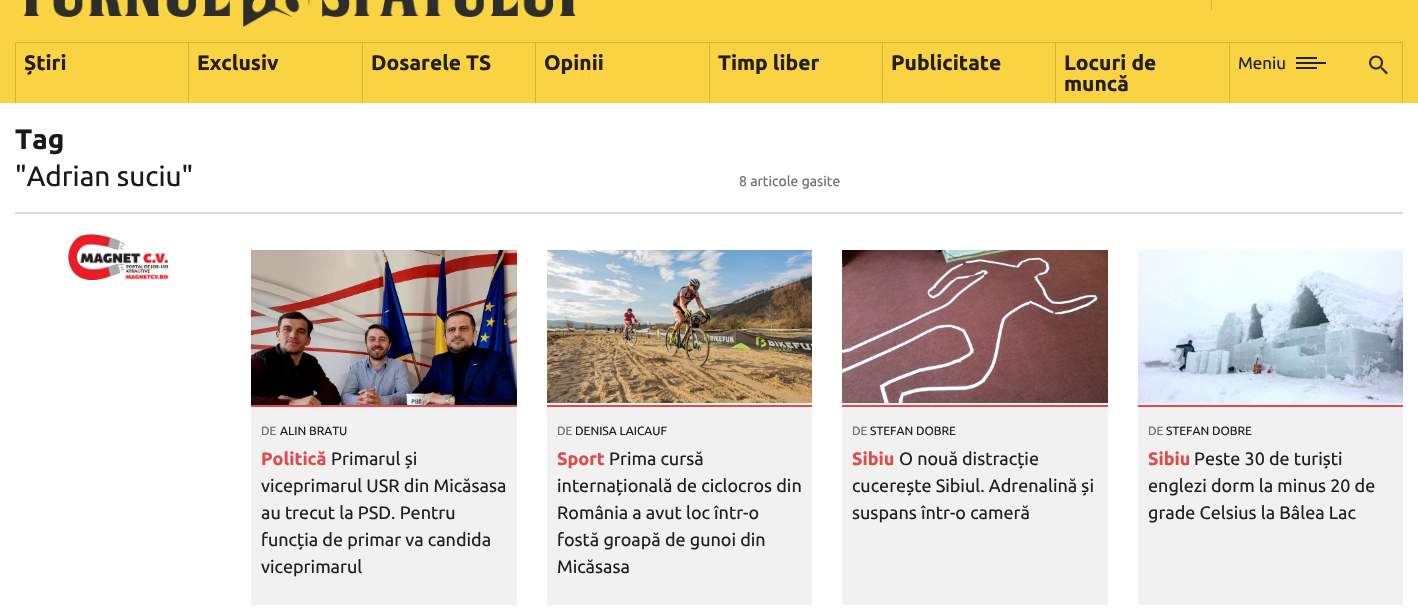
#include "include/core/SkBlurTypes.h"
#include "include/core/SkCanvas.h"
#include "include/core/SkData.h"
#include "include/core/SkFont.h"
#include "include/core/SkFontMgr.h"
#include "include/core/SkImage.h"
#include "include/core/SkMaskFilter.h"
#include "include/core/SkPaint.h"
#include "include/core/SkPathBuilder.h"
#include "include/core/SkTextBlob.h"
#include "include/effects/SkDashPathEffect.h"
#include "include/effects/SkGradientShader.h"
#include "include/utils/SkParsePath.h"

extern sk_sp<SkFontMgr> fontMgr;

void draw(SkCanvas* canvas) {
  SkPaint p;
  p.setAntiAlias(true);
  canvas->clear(SK_ColorWHITE);
  p.setColor(SkColorSetRGB(249, 211, 66));
  canvas->drawRect(SkRect::MakeLTRB(0, 0, 1418, 103), p);
  canvas->drawImageRect(SkImages::DeferredFromEncodedData(SkData::MakeFromFileName("images/1.png")), SkRect::MakeLTRB(23, 0, 576, 27), SkSamplingOptions());
  p.setColor(SkColorSetRGB(212, 179, 56));
  canvas->drawRect(SkRect::MakeLTRB(1211, 0, 1212, 10), p);
  canvas->drawRect(SkRect::MakeLTRB(15, 42, 16, 103), p);
  canvas->drawPath(SkPathBuilder().moveTo(16, 42).lineTo(189, 42).lineTo(188, 43).lineTo(16, 43).close().detach(), p);
  p.setColor(SkColorSetARGB(38, 0, 0, 0));
  canvas->drawPath(SkPathBuilder().moveTo(189, 42).lineTo(189, 103).lineTo(188, 103).lineTo(188, 43).close().detach(), p);
  p.setColor(SkColorSetRGB(212, 179, 56));
  canvas->drawPath(SkPathBuilder().moveTo(189, 42).lineTo(363, 42).lineTo(362, 43).lineTo(189, 43).close().detach(), p);
  p.setColor(SkColorSetARGB(38, 0, 0, 0));
  canvas->drawPath(SkPathBuilder().moveTo(363, 42).lineTo(363, 103).lineTo(362, 103).lineTo(362, 43).close().detach(), p);
  p.setColor(SkColorSetRGB(212, 179, 56));
  canvas->drawPath(SkPathBuilder().moveTo(363, 42).lineTo(536, 42).lineTo(535, 43).lineTo(363, 43).close().detach(), p);
  p.setColor(SkColorSetARGB(38, 0, 0, 0));
  canvas->drawPath(SkPathBuilder().moveTo(536, 42).lineTo(536, 103).lineTo(535, 103).lineTo(535, 43).close().detach(), p);
  p.setColor(SkColorSetRGB(212, 179, 56));
  canvas->drawPath(SkPathBuilder().moveTo(536, 42).lineTo(710, 42).lineTo(709, 43).lineTo(536, 43).close().detach(), p);
  p.setColor(SkColorSetARGB(38, 0, 0, 0));
  canvas->drawPath(SkPathBuilder().moveTo(710, 42).lineTo(710, 103).lineTo(709, 103).lineTo(709, 43).close().detach(), p);
  p.setColor(SkColorSetRGB(212, 179, 56));
  canvas->drawPath(SkPathBuilder().moveTo(710, 42).lineTo(883, 42).lineTo(882, 43).lineTo(710, 43).close().detach(), p);
  p.setColor(SkColorSetARGB(38, 0, 0, 0));
  canvas->drawPath(SkPathBuilder().moveTo(883, 42).lineTo(883, 103).lineTo(882, 103).lineTo(882, 43).close().detach(), p);
  p.setColor(SkColorSetRGB(212, 179, 56));
  canvas->drawPath(SkPathBuilder().moveTo(883, 42).lineTo(1056, 42).lineTo(1055, 43).lineTo(883, 43).close().detach(), p);
  p.setColor(SkColorSetARGB(38, 0, 0, 0));
  canvas->drawPath(SkPathBuilder().moveTo(1056, 42).lineTo(1056, 103).lineTo(1055, 103).lineTo(1055, 43).close().detach(), p);
  p.setColor(SkColorSetRGB(212, 179, 56));
  canvas->drawPath(SkPathBuilder().moveTo(1056, 42).lineTo(1230, 42).lineTo(1229, 43).lineTo(1056, 43).close().detach(), p);
  p.setColor(SkColorSetARGB(38, 0, 0, 0));
  canvas->drawPath(SkPathBuilder().moveTo(1230, 42).lineTo(1230, 103).lineTo(1229, 103).lineTo(1229, 43).close().detach(), p);
  p.setColor(SkColorSetRGB(212, 179, 56));
  canvas->drawPath(SkPathBuilder().moveTo(1230, 42).lineTo(1403, 42).lineTo(1402, 43).lineTo(1230, 43).close().detach(), p);
  p.setColor(SkColorSetARGB(38, 0, 0, 0));
  canvas->drawPath(SkPathBuilder().moveTo(1403, 42).lineTo(1403, 103).lineTo(1402, 103).lineTo(1402, 43).close().detach(), p);
  p.setColor(SkColorSetRGB(33, 33, 33));
  canvas->drawRect(SkRect::MakeLTRB(1296, 62, 1326, 64), p);
  canvas->drawRect(SkRect::MakeLTRB(1296, 57, 1317, 59), p);
  canvas->drawRect(SkRect::MakeLTRB(1296, 67, 1317, 69), p);
  canvas->drawImageRect(SkImages::DeferredFromEncodedData(SkData::MakeFromFileName("images/2.png")), SkRect::MakeLTRB(1369, 55, 1388, 75), SkSamplingOptions());
  p.setColor(SkColorSetRGB(216, 216, 216));
  canvas->drawRect(SkRect::MakeLTRB(15, 212, 1403, 214), p);
  canvas->drawImageRect(SkImages::DeferredFromEncodedData(SkData::MakeFromFileName("images/3.png")), SkRect::MakeLTRB(68, 234, 168, 280), SkSamplingOptions());
  p.setColor(SkColorSetRGB(241, 241, 241));
  canvas->drawRect(SkRect::MakeLTRB(251, 407, 517, 605), p);
  canvas->drawImageRect(SkImages::DeferredFromEncodedData(SkData::MakeFromFileName("images/4.png")), SkRect::MakeLTRB(251, 250, 517, 405), SkSamplingOptions());
  p.setColor(SkColorSetRGB(223, 75, 75));
  canvas->drawRect(SkRect::MakeLTRB(251, 405, 517, 407), p);
  p.setColor(SkColorSetRGB(241, 241, 241));
  canvas->drawRect(SkRect::MakeLTRB(547, 403, 812, 605), p);
  canvas->drawImageRect(SkImages::DeferredFromEncodedData(SkData::MakeFromFileName("images/5.png")), SkRect::MakeLTRB(547, 250, 812, 403), SkSamplingOptions());
  p.setColor(SkColorSetRGB(223, 75, 75));
  canvas->drawRect(SkRect::MakeLTRB(547, 405, 812, 407), p);
  p.setColor(SkColorSetRGB(241, 241, 241));
  canvas->drawRect(SkRect::MakeLTRB(842, 403, 1108, 605), p);
  canvas->drawImageRect(SkImages::DeferredFromEncodedData(SkData::MakeFromFileName("images/6.png")), SkRect::MakeLTRB(842, 250, 1108, 403), SkSamplingOptions());
  p.setColor(SkColorSetRGB(223, 75, 75));
  canvas->drawRect(SkRect::MakeLTRB(842, 405, 1108, 407), p);
  p.setColor(SkColorSetRGB(241, 241, 241));
  canvas->drawRect(SkRect::MakeLTRB(1138, 403, 1403, 605), p);
  canvas->drawImageRect(SkImages::DeferredFromEncodedData(SkData::MakeFromFileName("images/7.png")), SkRect::MakeLTRB(1138, 250, 1403, 403), SkSamplingOptions());
  p.setColor(SkColorSetRGB(223, 75, 75));
  canvas->drawRect(SkRect::MakeLTRB(1138, 405, 1403, 407), p);
  SkFont font1(fontMgr->matchFamilyStyle("Ubuntu", SkFontStyle::Bold()), 21);
  font1.setSubpixel(true);
  p.setColor(SkColorSetRGB(35, 31, 32));
  canvas->drawString("Știri", 24, 70, font1, p);
  canvas->drawString("Exclusiv", 197, 70, font1, p);
  canvas->drawString("Dosarele TS", 371, 70, font1, p);
  canvas->drawString("Opinii", 544, 70, font1, p);
  canvas->drawString("Timp liber", 718, 70, font1, p);
  canvas->drawString("Publicitate", 891, 70, font1, p);
  canvas->drawString("Locuri de", 1064, 70, font1, p);
  canvas->drawString("muncă", 1064, 91, font1, p);
  SkFont font2(fontMgr->matchFamilyStyle("Ubuntu", SkFontStyle::Normal()), 17);
  font2.setSubpixel(true);
  canvas->drawString("Meniu", 1238, 69, font2, p);
  SkFont font3(fontMgr->matchFamilyStyle("Ubuntu", SkFontStyle::Bold()), 28);
  font3.setSubpixel(true);
  p.setColor(SkColorSetRGB(28, 25, 26));
  canvas->drawString("Tag", 15, 149, font3, p);
  SkFont font4(fontMgr->matchFamilyStyle("Ubuntu", SkFontStyle::Normal()), 28);
  font4.setSubpixel(true);
  canvas->drawString("\"Adrian suciu\"", 15, 186, font4, p);
  SkFont font5(fontMgr->matchFamilyStyle("Ubuntu", SkFontStyle::Normal()), 14);
  font5.setSubpixel(true);
  p.setColor(SkColorSetRGB(111, 111, 111));
  canvas->drawString("8 articole gasite", 739, 186, font5, p);
  SkFont font6(fontMgr->matchFamilyStyle("Ubuntu", SkFontStyle::Normal()), 12);
  font6.setSubpixel(true);
  p.setColor(SkColorSetRGB(108, 108, 105));
  canvas->drawString("DE", 261, 435, font6, p);
  p.setColor(SkColorSetRGB(35, 31, 32));
  canvas->drawString("ALIN BRATU", 280, 435, font6, p);
  SkFont font7(fontMgr->matchFamilyStyle("Ubuntu", SkFontStyle::Bold()), 18);
  font7.setSubpixel(true);
  p.setColor(SkColorSetRGB(223, 75, 75));
  canvas->drawString("Politică", 261, 465, font7, p);
  SkFont font8(fontMgr->matchFamilyStyle("Ubuntu", SkFontStyle::Normal()), 18);
  font8.setSubpixel(true);
  p.setColor(SkColorSetRGB(35, 31, 32));
  canvas->drawString("Primarul și", 331, 465, font8, p);
  canvas->drawString("viceprimarul USR din Micăsasa", 261, 492, font8, p);
  canvas->drawString("au trecut la PSD. Pentru", 261, 519, font8, p);
  canvas->drawString("funcția de primar va candida", 261, 546, font8, p);
  canvas->drawString("viceprimarul", 261, 573, font8, p);
  p.setColor(SkColorSetRGB(108, 108, 105));
  canvas->drawString("DE", 557, 435, font6, p);
  p.setColor(SkColorSetRGB(35, 31, 32));
  canvas->drawString("DENISA LAICAUF", 575, 435, font6, p);
  p.setColor(SkColorSetRGB(223, 75, 75));
  canvas->drawString("Sport", 557, 465, font7, p);
  p.setColor(SkColorSetRGB(35, 31, 32));
  canvas->drawString("Prima cursă", 609, 465, font8, p);
  canvas->drawString("internațională de ciclocros din", 557, 492, font8, p);
  canvas->drawString("România a avut loc într-o", 557, 519, font8, p);
  canvas->drawString("fostă groapă de gunoi din", 557, 546, font8, p);
  canvas->drawString("Micăsasa", 557, 573, font8, p);
  p.setColor(SkColorSetRGB(108, 108, 105));
  canvas->drawString("DE", 852, 435, font6, p);
  p.setColor(SkColorSetRGB(35, 31, 32));
  canvas->drawString("STEFAN DOBRE", 870, 435, font6, p);
  p.setColor(SkColorSetRGB(223, 75, 75));
  canvas->drawString("Sibiu", 852, 465, font7, p);
  p.setColor(SkColorSetRGB(35, 31, 32));
  canvas->drawString("O nouă distracție", 899, 465, font8, p);
  canvas->drawString("cucerește Sibiul. Adrenalină și", 852, 492, font8, p);
  canvas->drawString("suspans într-o cameră", 852, 519, font8, p);
  p.setColor(SkColorSetRGB(108, 108, 105));
  canvas->drawString("DE", 1148, 435, font6, p);
  p.setColor(SkColorSetRGB(35, 31, 32));
  canvas->drawString("STEFAN DOBRE", 1166, 435, font6, p);
  p.setColor(SkColorSetRGB(223, 75, 75));
  canvas->drawString("Sibiu", 1148, 465, font7, p);
  p.setColor(SkColorSetRGB(35, 31, 32));
  canvas->drawString("Peste 30 de turiști", 1194, 465, font8, p);
  canvas->drawString("englezi dorm la minus 20 de", 1148, 492, font8, p);
  canvas->drawString("grade Celsius la Bâlea Lac", 1148, 519, font8, p);
}
